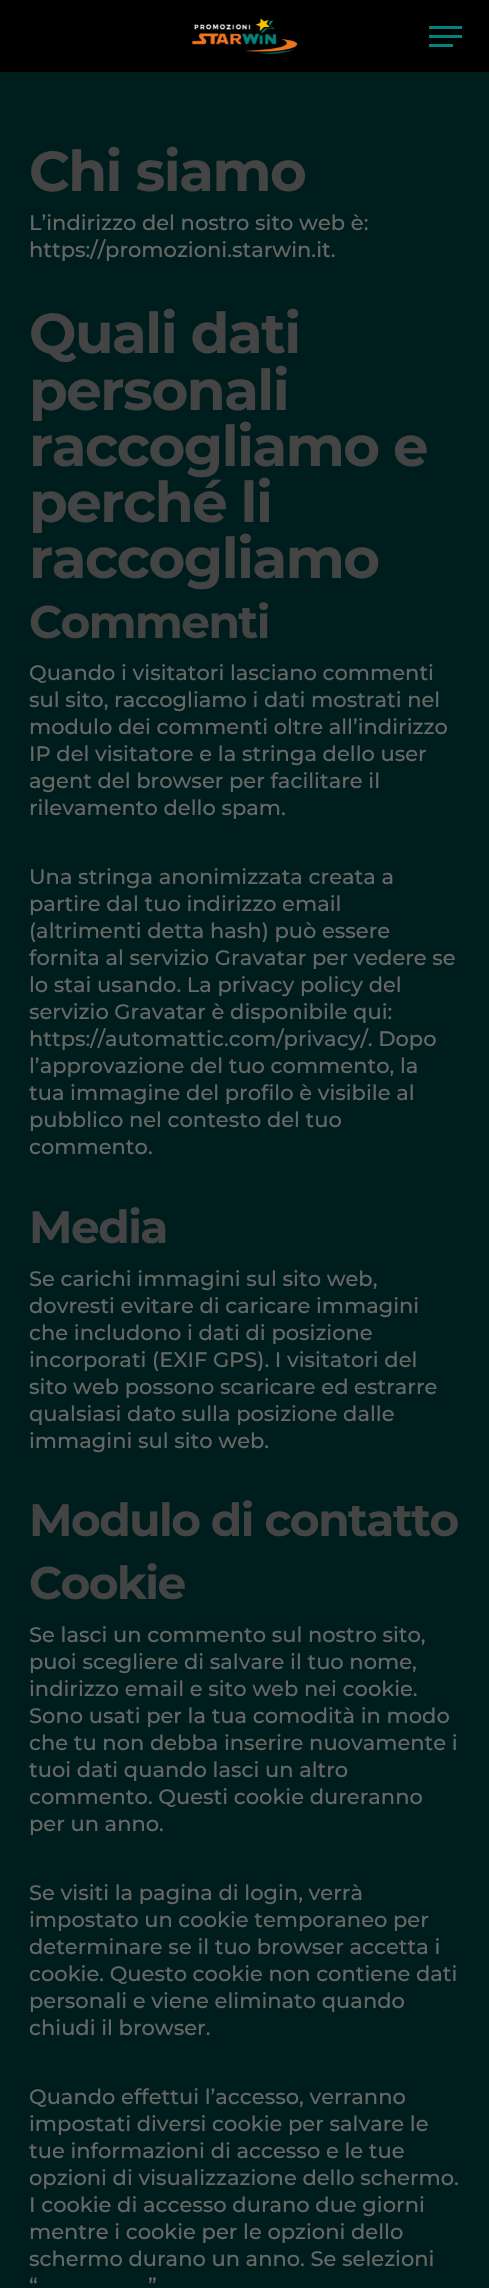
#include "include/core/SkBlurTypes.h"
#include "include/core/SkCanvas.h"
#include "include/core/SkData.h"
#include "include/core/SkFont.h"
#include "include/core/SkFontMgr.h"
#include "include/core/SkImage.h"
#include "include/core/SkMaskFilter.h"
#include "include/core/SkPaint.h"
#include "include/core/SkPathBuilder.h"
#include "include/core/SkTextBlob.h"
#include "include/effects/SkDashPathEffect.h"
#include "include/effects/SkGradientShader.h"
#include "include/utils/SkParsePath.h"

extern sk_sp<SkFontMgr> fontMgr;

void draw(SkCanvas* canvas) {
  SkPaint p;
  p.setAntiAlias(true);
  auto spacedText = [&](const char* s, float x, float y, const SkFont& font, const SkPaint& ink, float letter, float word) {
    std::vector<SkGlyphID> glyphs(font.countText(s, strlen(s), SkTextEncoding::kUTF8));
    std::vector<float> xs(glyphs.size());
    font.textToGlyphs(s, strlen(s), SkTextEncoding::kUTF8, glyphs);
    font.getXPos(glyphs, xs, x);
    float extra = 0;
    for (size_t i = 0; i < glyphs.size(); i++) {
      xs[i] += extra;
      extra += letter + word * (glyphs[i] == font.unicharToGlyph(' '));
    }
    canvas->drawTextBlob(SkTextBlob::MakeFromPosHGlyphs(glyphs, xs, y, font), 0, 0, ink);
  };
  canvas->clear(SkColorSetRGB(0, 29, 30));
  p.setColor(SK_ColorBLACK);
  canvas->drawRect(SkRect::MakeLTRB(0, 0, 489, 72), p);
  canvas->drawImageRect(SkImages::DeferredFromEncodedData(SkData::MakeFromFileName("images/1.png")), SkRect::MakeLTRB(192, 18, 298, 54), SkSamplingOptions());
  p.setColor(SkColorSetRGB(2, 132, 124));
  canvas->drawRect(SkRect::MakeLTRB(429, 26, 462, 29), p);
  canvas->drawRect(SkRect::MakeLTRB(429, 44, 453, 47), p);
  canvas->drawRect(SkRect::MakeLTRB(429, 35, 462, 38), p);
  SkFont font1(fontMgr->matchFamilyStyle("Montserrat", SkFontStyle::Bold()), 56.25f);
  font1.setSubpixel(true);
  p.setColor(SkColorSetRGB(68, 68, 68));
  spacedText("Chi siamo", 29, 191, font1, p, -1.5f, 0);
  SkFont font2(fontMgr->matchFamilyStyle("Montserrat", SkFontStyle(500, SkFontStyle::kNormal_Width, SkFontStyle::kUpright_Slant)), 21);
  font2.setSubpixel(true);
  p.setColor(SkColorSetRGB(103, 103, 103));
  canvas->drawString("L’indirizzo del nostro sito web è:", 29, 230, font2, p);
  canvas->drawString("https://promozioni.starwin.it.", 29, 257, font2, p);
  p.setColor(SkColorSetRGB(68, 68, 68));
  spacedText("Quali dati", 29, 353, font1, p, -1.5f, 0);
  spacedText("personali", 29, 410, font1, p, -1.5f, 0);
  spacedText("raccogliamo e", 29, 466, font1, p, -1.5f, 0);
  spacedText("perché li", 29, 522, font1, p, -1.5f, 0);
  spacedText("raccogliamo", 29, 578, font1, p, -1.5f, 0);
  SkFont font3(fontMgr->matchFamilyStyle("Montserrat", SkFontStyle::Bold()), 45.5f);
  font3.setSubpixel(true);
  spacedText("Commenti", 29, 638, font3, p, -1.5f, 0);
  p.setColor(SkColorSetRGB(103, 103, 103));
  canvas->drawString("Quando i visitatori lasciano commenti", 29, 680, font2, p);
  canvas->drawString("sul sito, raccogliamo i dati mostrati nel", 29, 707, font2, p);
  canvas->drawString("modulo dei commenti oltre all’indirizzo", 29, 734, font2, p);
  canvas->drawString("IP del visitatore e la stringa dello user", 29, 761, font2, p);
  canvas->drawString("agent del browser per facilitare il", 29, 788, font2, p);
  canvas->drawString("rilevamento dello spam.", 29, 815, font2, p);
  canvas->drawString("Una stringa anonimizzata creata a", 29, 884, font2, p);
  canvas->drawString("partire dal tuo indirizzo email", 29, 911, font2, p);
  canvas->drawString("(altrimenti detta hash) può essere", 29, 938, font2, p);
  canvas->drawString("fornita al servizio Gravatar per vedere se", 29, 965, font2, p);
  canvas->drawString("lo stai usando. La privacy policy del", 29, 992, font2, p);
  canvas->drawString("servizio Gravatar è disponibile qui:", 29, 1019, font2, p);
  canvas->drawString("https://automattic.com/privacy/. Dopo", 29, 1046, font2, p);
  canvas->drawString("l’approvazione del tuo commento, la", 29, 1073, font2, p);
  canvas->drawString("tua immagine del profilo è visibile al", 29, 1100, font2, p);
  canvas->drawString("pubblico nel contesto del tuo", 29, 1127, font2, p);
  canvas->drawString("commento.", 29, 1154, font2, p);
  p.setColor(SkColorSetRGB(68, 68, 68));
  spacedText("Media", 29, 1243, font3, p, -1.5f, 0);
  p.setColor(SkColorSetRGB(103, 103, 103));
  canvas->drawString("Se carichi immagini sul sito web,", 29, 1286, font2, p);
  canvas->drawString("dovresti evitare di caricare immagini", 29, 1313, font2, p);
  canvas->drawString("che includono i dati di posizione", 29, 1340, font2, p);
  canvas->drawString("incorporati (EXIF GPS). I visitatori del", 29, 1367, font2, p);
  canvas->drawString("sito web possono scaricare ed estrarre", 29, 1394, font2, p);
  canvas->drawString("qualsiasi dato sulla posizione dalle", 29, 1421, font2, p);
  canvas->drawString("immagini sul sito web.", 29, 1448, font2, p);
  p.setColor(SkColorSetRGB(68, 68, 68));
  spacedText("Modulo di contatto", 29, 1536, font3, p, -1.5f, 0);
  spacedText("Cookie", 29, 1599, font3, p, -1.5f, 0);
  p.setColor(SkColorSetRGB(103, 103, 103));
  canvas->drawString("Se lasci un commento sul nostro sito,", 29, 1642, font2, p);
  canvas->drawString("puoi scegliere di salvare il tuo nome,", 29, 1669, font2, p);
  canvas->drawString("indirizzo email e sito web nei cookie.", 29, 1696, font2, p);
  canvas->drawString("Sono usati per la tua comodità in modo", 29, 1723, font2, p);
  canvas->drawString("che tu non debba inserire nuovamente i", 29, 1750, font2, p);
  canvas->drawString("tuoi dati quando lasci un altro", 29, 1777, font2, p);
  canvas->drawString("commento. Questi cookie dureranno", 29, 1804, font2, p);
  canvas->drawString("per un anno.", 29, 1831, font2, p);
  canvas->drawString("Se visiti la pagina di login, verrà", 29, 1900, font2, p);
  canvas->drawString("impostato un cookie temporaneo per", 29, 1927, font2, p);
  canvas->drawString("determinare se il tuo browser accetta i", 29, 1954, font2, p);
  canvas->drawString("cookie. Questo cookie non contiene dati", 29, 1981, font2, p);
  canvas->drawString("personali e viene eliminato quando", 29, 2008, font2, p);
  canvas->drawString("chiudi il browser.", 29, 2035, font2, p);
  canvas->drawString("Quando effettui l’accesso, verranno", 29, 2104, font2, p);
  canvas->drawString("impostati diversi cookie per salvare le", 29, 2131, font2, p);
  canvas->drawString("tue informazioni di accesso e le tue", 29, 2158, font2, p);
  canvas->drawString("opzioni di visualizzazione dello schermo.", 29, 2185, font2, p);
  canvas->drawString("I cookie di accesso durano due giorni", 29, 2212, font2, p);
  canvas->drawString("mentre i cookie per le opzioni dello", 29, 2239, font2, p);
  canvas->drawString("schermo durano un anno. Se selezioni", 29, 2266, font2, p);
  canvas->drawString("“", 29, 2293, font2, p);
  canvas->drawString("”", 148, 2293, font2, p);
}
